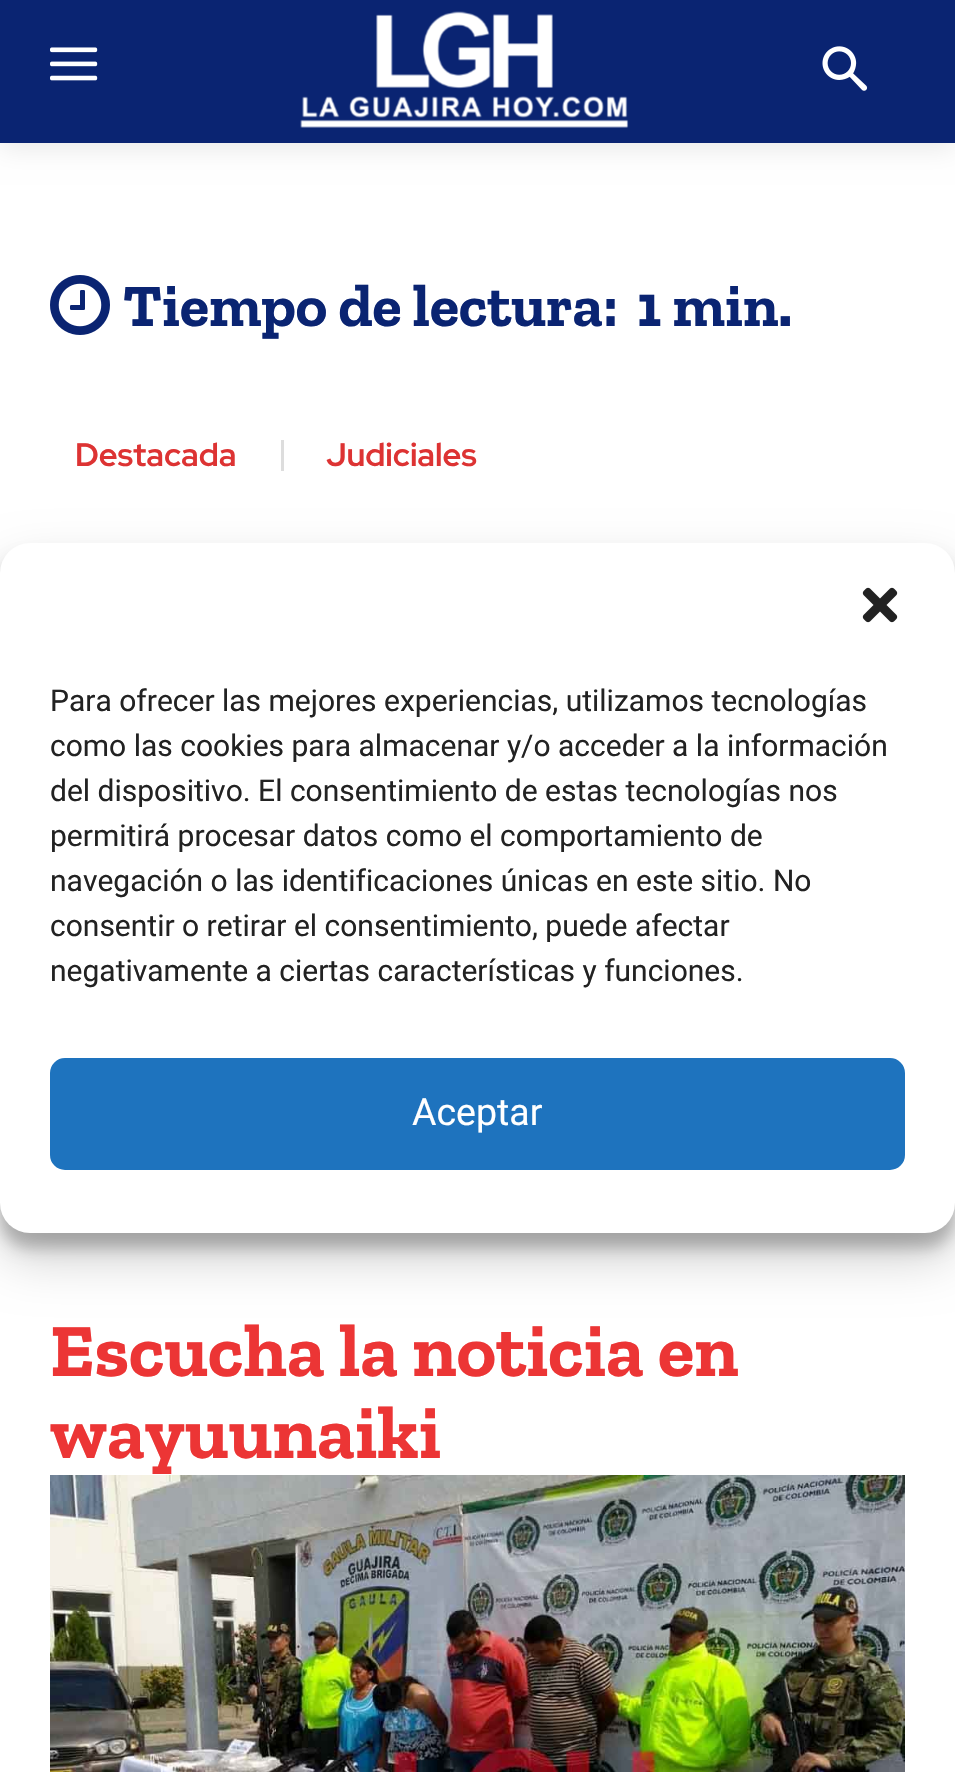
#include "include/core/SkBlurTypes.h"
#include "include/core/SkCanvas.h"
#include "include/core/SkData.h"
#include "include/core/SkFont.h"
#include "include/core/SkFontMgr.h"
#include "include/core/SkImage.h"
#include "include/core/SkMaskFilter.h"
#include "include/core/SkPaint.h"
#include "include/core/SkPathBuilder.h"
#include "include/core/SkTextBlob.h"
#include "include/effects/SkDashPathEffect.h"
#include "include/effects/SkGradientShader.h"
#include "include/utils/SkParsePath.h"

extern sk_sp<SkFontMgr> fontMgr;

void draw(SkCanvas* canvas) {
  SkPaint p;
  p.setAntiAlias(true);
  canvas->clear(SK_ColorWHITE);
  p.setColor(SkColorSetARGB(23, 0, 0, 0));
  p.setMaskFilter(SkMaskFilter::MakeBlur(kNormal_SkBlurStyle, 12.5f));
  canvas->drawRect(SkRect::MakeLTRB(0, 5, 955, 148), p);
  p.setMaskFilter(nullptr);
  p.setColor(SkColorSetRGB(10, 36, 114));
  canvas->drawRect(SkRect::MakeLTRB(0, 0, 955, 143), p);
  canvas->drawImageRect(SkImages::DeferredFromEncodedData(SkData::MakeFromFileName("images/1.png")), SkRect::MakeLTRB(50, 47, 98, 81), SkSamplingOptions());
  canvas->drawImageRect(SkImages::DeferredFromEncodedData(SkData::MakeFromFileName("images/2.png")), SkRect::MakeLTRB(300, 11, 629, 128), SkSamplingOptions());
  canvas->drawImageRect(SkImages::DeferredFromEncodedData(SkData::MakeFromFileName("images/3.png")), SkRect::MakeLTRB(822, 46, 868, 91), SkSamplingOptions());
  canvas->drawImageRect(SkImages::DeferredFromEncodedData(SkData::MakeFromFileName("images/4.png")), SkRect::MakeLTRB(50, 275, 110, 335), SkSamplingOptions());
  p.setColor(SkColorSetRGB(221, 221, 221));
  canvas->drawRect(SkRect::MakeLTRB(281, 440, 284, 471), p);
  canvas->drawImageRect(SkImages::DeferredFromEncodedData(SkData::MakeFromFileName("images/5.png")), SkRect::MakeLTRB(50, 1475, 905, 1772), SkSamplingOptions());
  p.setColor(SkColorSetARGB(59, 0, 0, 0));
  p.setMaskFilter(SkMaskFilter::MakeBlur(kNormal_SkBlurStyle, 7.5f));
  canvas->drawRoundRect(SkRect::MakeLTRB(0, 558, 955, 1248), 30, 30, p);
  p.setMaskFilter(nullptr);
  p.setColor(SkColorSetARGB(48, 0, 0, 0));
  p.setMaskFilter(SkMaskFilter::MakeBlur(kNormal_SkBlurStyle, 25));
  canvas->drawRoundRect(SkRect::MakeLTRB(0, 568, 955, 1258), 30, 30, p);
  p.setMaskFilter(nullptr);
  p.setColor(SK_ColorWHITE);
  canvas->drawRoundRect(SkRect::MakeLTRB(0, 543, 955, 1233), 30, 30, p);
  canvas->drawImageRect(SkImages::DeferredFromEncodedData(SkData::MakeFromFileName("images/6.png")), SkRect::MakeLTRB(862, 587, 898, 623), SkSamplingOptions());
  p.setColor(SkColorSetRGB(30, 115, 190));
  canvas->drawRoundRect(SkRect::MakeLTRB(51.5f, 1059.5f, 903.5f, 1168.5f), 13.5f, 13.5f, p);
  p.setStyle(SkPaint::kStroke_Style);
  p.setStrokeWidth(3);
  canvas->drawRoundRect(SkRect::MakeLTRB(51.5f, 1059.5f, 903.5f, 1168.5f), 13.5f, 13.5f, p);
  SkFont font1(fontMgr->matchFamilyStyle("Zilla Slab", SkFontStyle::Bold()), 60);
  font1.setSubpixel(true);
  p.setStyle(SkPaint::kFill_Style);
  p.setColor(SkColorSetRGB(10, 36, 114));
  canvas->drawString("Tiempo de lectura:", 123, 326, font1, p);
  canvas->drawString("1 min.", 637, 326, font1, p);
  SkFont font2(fontMgr->matchFamilyStyle("Red Hat Display", SkFontStyle::Bold()), 32.5f);
  font2.setSubpixel(true);
  p.setColor(SkColorSetRGB(221, 51, 51));
  canvas->drawString("Destacada", 75, 466, font2, p);
  canvas->drawString("Judiciales", 326, 466, font2, p);
  SkFont font3(fontMgr->matchFamilyStyle("Zilla Slab", SkFontStyle::Bold()), 75);
  font3.setSubpixel(true);
  p.setColor(SkColorSetRGB(236, 53, 53));
  canvas->drawString("Escucha la noticia en", 50, 1376, font3, p);
  canvas->drawString("wayuunaiki", 50, 1458, font3, p);
  SkFont font4(fontMgr->matchFamilyStyle("Roboto", SkFontStyle::Normal()), 30);
  font4.setSubpixel(true);
  p.setColor(SkColorSetRGB(34, 34, 34));
  canvas->drawString("Para ofrecer las mejores experiencias, utilizamos tecnologías", 50, 711, font4, p);
  canvas->drawString("como las cookies para almacenar y/o acceder a la información", 50, 756, font4, p);
  canvas->drawString("del dispositivo. El consentimiento de estas tecnologías nos", 50, 801, font4, p);
  canvas->drawString("permitirá procesar datos como el comportamiento de", 50, 846, font4, p);
  canvas->drawString("navegación o las identificaciones únicas en este sitio. No", 50, 891, font4, p);
  canvas->drawString("consentir o retirar el consentimiento, puede afectar", 50, 936, font4, p);
  canvas->drawString("negativamente a ciertas características y funciones.", 50, 981, font4, p);
  SkFont font5(fontMgr->matchFamilyStyle("Roboto", SkFontStyle::Normal()), 37.5f);
  font5.setSubpixel(true);
  p.setColor(SK_ColorWHITE);
  canvas->drawString("Aceptar", 412, 1125, font5, p);
}
